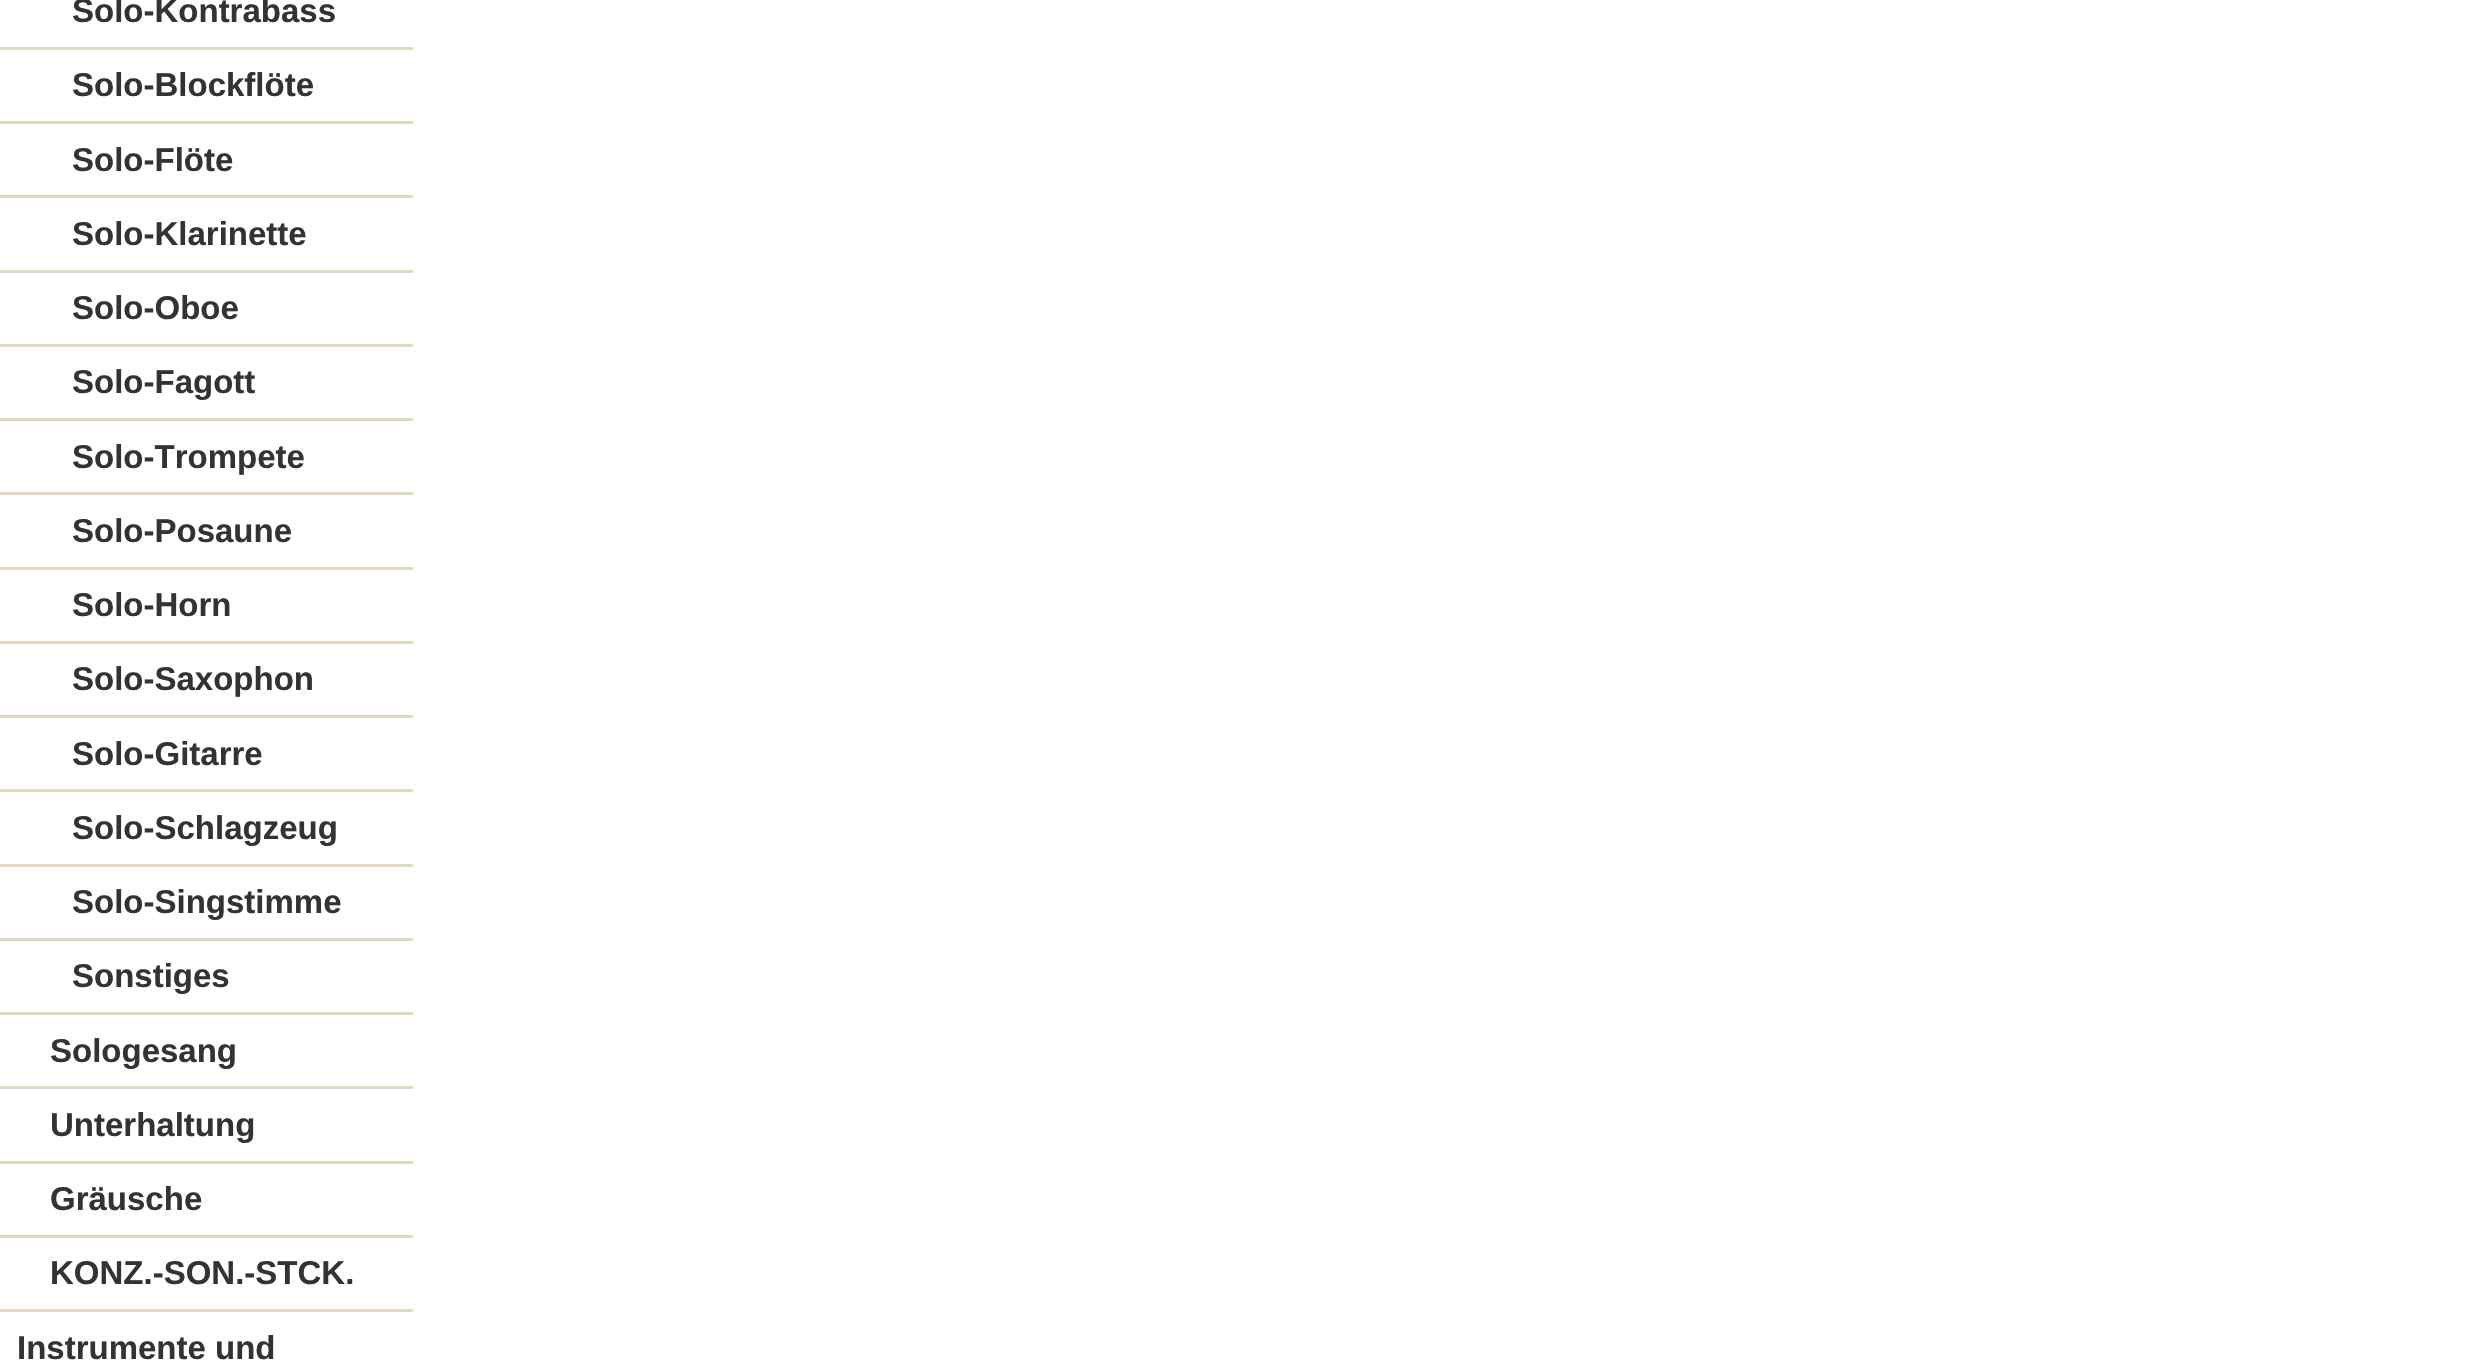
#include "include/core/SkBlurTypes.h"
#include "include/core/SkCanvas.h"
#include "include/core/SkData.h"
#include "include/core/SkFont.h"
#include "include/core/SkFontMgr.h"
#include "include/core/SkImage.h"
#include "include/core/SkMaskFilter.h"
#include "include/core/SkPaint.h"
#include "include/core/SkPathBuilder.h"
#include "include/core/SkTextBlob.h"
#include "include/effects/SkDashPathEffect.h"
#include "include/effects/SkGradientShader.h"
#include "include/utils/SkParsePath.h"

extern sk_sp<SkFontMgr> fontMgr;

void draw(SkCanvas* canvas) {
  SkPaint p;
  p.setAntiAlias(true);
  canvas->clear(SK_ColorWHITE);
  p.setColor(SkColorSetRGB(227, 218, 189));
  canvas->drawRect(SkRect::MakeLTRB(0, 47, 413, 50), p);
  canvas->drawRect(SkRect::MakeLTRB(0, 121, 413, 124), p);
  canvas->drawRect(SkRect::MakeLTRB(0, 195, 413, 198), p);
  canvas->drawRect(SkRect::MakeLTRB(0, 270, 413, 273), p);
  canvas->drawRect(SkRect::MakeLTRB(0, 344, 413, 347), p);
  canvas->drawRect(SkRect::MakeLTRB(0, 418, 413, 421), p);
  canvas->drawRect(SkRect::MakeLTRB(0, 492, 413, 495), p);
  canvas->drawRect(SkRect::MakeLTRB(0, 567, 413, 570), p);
  canvas->drawRect(SkRect::MakeLTRB(0, 641, 413, 644), p);
  canvas->drawRect(SkRect::MakeLTRB(0, 715, 413, 718), p);
  canvas->drawRect(SkRect::MakeLTRB(0, 789, 413, 792), p);
  canvas->drawRect(SkRect::MakeLTRB(0, 864, 413, 867), p);
  canvas->drawRect(SkRect::MakeLTRB(0, 938, 413, 941), p);
  canvas->drawRect(SkRect::MakeLTRB(0, 1012, 413, 1015), p);
  canvas->drawRect(SkRect::MakeLTRB(0, 1086, 413, 1089), p);
  canvas->drawRect(SkRect::MakeLTRB(0, 1161, 413, 1164), p);
  canvas->drawRect(SkRect::MakeLTRB(0, 1235, 413, 1238), p);
  canvas->drawRect(SkRect::MakeLTRB(0, 1309, 413, 1312), p);
  SkFont font1(fontMgr->matchFamilyStyle("Liberation Sans", SkFontStyle::Bold()), 33);
  font1.setSubpixel(true);
  p.setColor(SkColorSetRGB(51, 51, 51));
  canvas->drawString("Solo-Kontrabass", 72, 22, font1, p);
  canvas->drawString("Solo-Blockflöte", 72, 96, font1, p);
  canvas->drawString("Solo-Flöte", 72, 171, font1, p);
  canvas->drawString("Solo-Klarinette", 72, 245, font1, p);
  canvas->drawString("Solo-Oboe", 72, 319, font1, p);
  canvas->drawString("Solo-Fagott", 72, 393, font1, p);
  canvas->drawString("Solo-Trompete", 72, 468, font1, p);
  canvas->drawString("Solo-Posaune", 72, 542, font1, p);
  canvas->drawString("Solo-Horn", 72, 616, font1, p);
  canvas->drawString("Solo-Saxophon", 72, 690, font1, p);
  canvas->drawString("Solo-Gitarre", 72, 765, font1, p);
  canvas->drawString("Solo-Schlagzeug", 72, 839, font1, p);
  canvas->drawString("Solo-Singstimme", 72, 913, font1, p);
  canvas->drawString("Sonstiges", 72, 987, font1, p);
  canvas->drawString("Sologesang", 50, 1062, font1, p);
  canvas->drawString("Unterhaltung", 50, 1136, font1, p);
  canvas->drawString("Gräusche", 50, 1210, font1, p);
  canvas->drawString("KONZ.-SON.-STCK.", 50, 1284, font1, p);
  canvas->drawString("Instrumente und", 17, 1359, font1, p);
}
